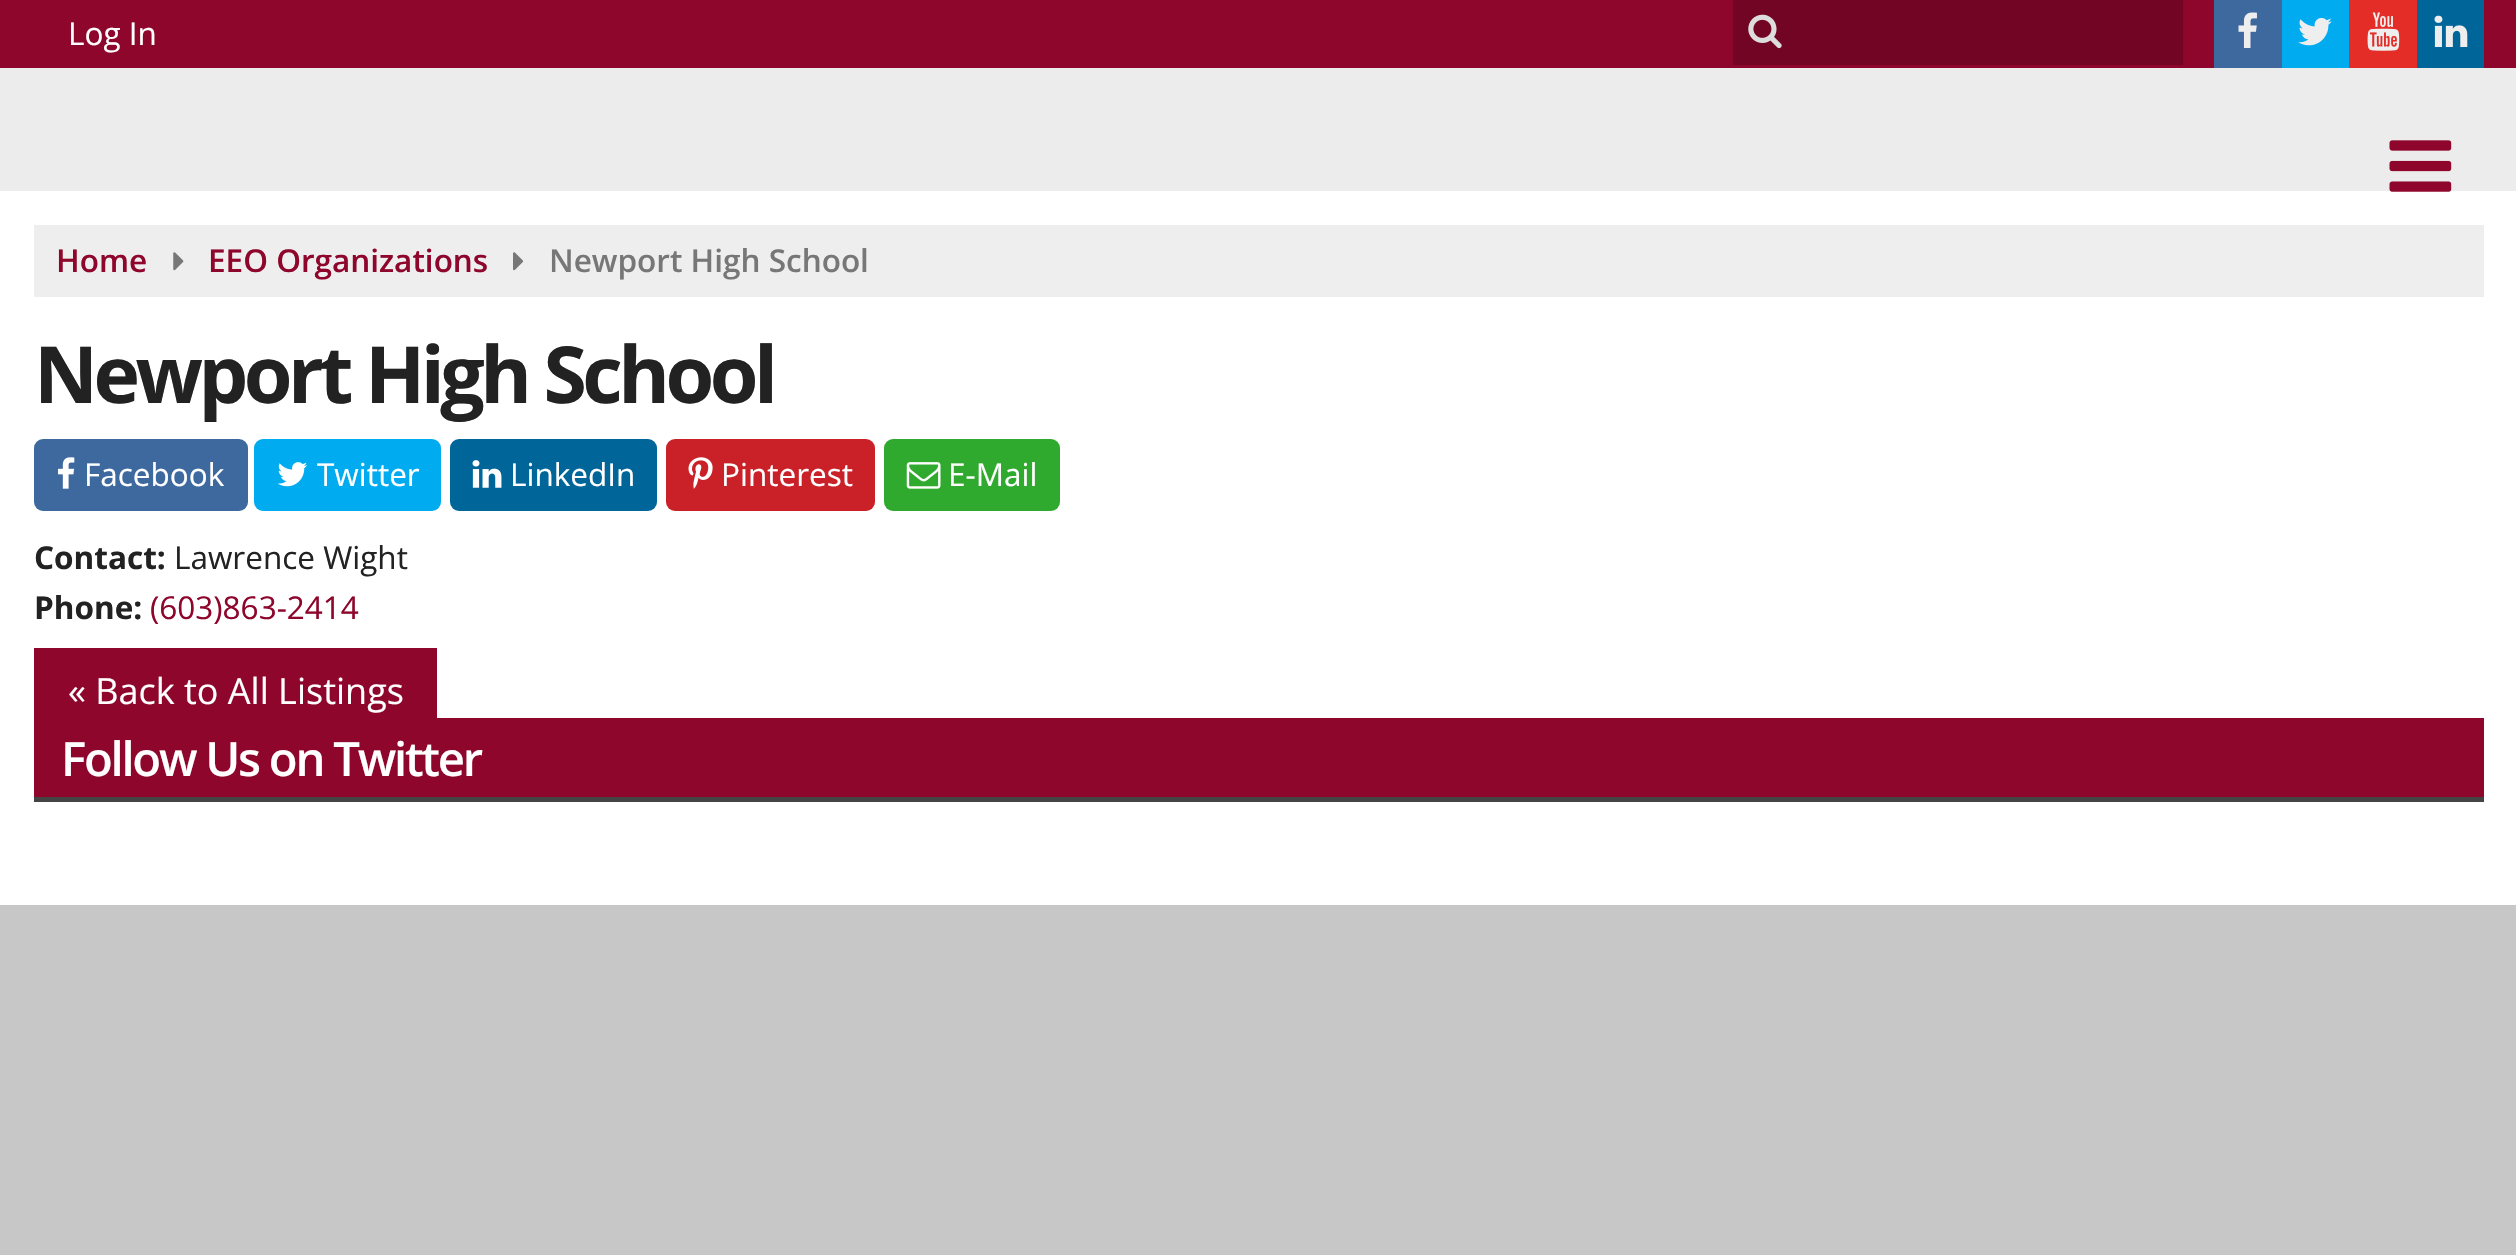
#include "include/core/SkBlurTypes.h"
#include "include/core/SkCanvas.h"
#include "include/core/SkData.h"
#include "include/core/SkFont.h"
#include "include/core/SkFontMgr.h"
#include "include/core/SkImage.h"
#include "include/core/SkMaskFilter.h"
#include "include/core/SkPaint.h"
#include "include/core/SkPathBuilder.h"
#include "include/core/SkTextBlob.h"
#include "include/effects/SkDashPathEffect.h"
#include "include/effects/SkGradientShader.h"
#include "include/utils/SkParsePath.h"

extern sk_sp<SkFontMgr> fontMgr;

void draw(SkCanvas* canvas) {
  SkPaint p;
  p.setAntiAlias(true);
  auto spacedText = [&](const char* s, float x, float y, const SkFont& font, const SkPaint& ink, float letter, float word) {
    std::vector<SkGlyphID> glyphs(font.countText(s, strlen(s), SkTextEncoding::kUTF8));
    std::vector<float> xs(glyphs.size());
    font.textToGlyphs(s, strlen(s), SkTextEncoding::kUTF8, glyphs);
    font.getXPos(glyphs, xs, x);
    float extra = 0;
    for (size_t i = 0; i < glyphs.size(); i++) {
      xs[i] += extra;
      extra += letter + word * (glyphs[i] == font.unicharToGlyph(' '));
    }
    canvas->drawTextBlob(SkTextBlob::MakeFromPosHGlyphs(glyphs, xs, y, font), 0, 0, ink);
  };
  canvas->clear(SK_ColorWHITE);
  p.setColor(SkColorSetRGB(142, 6, 44));
  canvas->drawRect(SkRect::MakeLTRB(0, 0, 2516, 68), p);
  p.setColor(SkColorSetRGB(114, 5, 35));
  canvas->drawRect(SkRect::MakeLTRB(1733, 0, 2183, 65), p);
  canvas->drawImageRect(SkImages::DeferredFromEncodedData(SkData::MakeFromFileName("images/1.png")), SkRect::MakeLTRB(1748, 14, 1782, 49), SkSamplingOptions());
  p.setColor(SkColorSetRGB(61, 105, 158));
  canvas->drawRect(SkRect::MakeLTRB(2214, 0, 2282, 68), p);
  canvas->drawImageRect(SkImages::DeferredFromEncodedData(SkData::MakeFromFileName("images/2.png")), SkRect::MakeLTRB(2238, 12, 2257, 48), SkSamplingOptions());
  p.setColor(SkColorSetRGB(0, 171, 240));
  canvas->drawRect(SkRect::MakeLTRB(2282, 0, 2349, 68), p);
  canvas->drawImageRect(SkImages::DeferredFromEncodedData(SkData::MakeFromFileName("images/3.png")), SkRect::MakeLTRB(2298, 18, 2332, 46), SkSamplingOptions());
  p.setColor(SkColorSetRGB(229, 45, 39));
  canvas->drawRect(SkRect::MakeLTRB(2349, 0, 2417, 68), p);
  canvas->drawImageRect(SkImages::DeferredFromEncodedData(SkData::MakeFromFileName("images/4.png")), SkRect::MakeLTRB(2367, 12, 2400, 51), SkSamplingOptions());
  p.setColor(SkColorSetRGB(0, 102, 153));
  canvas->drawRect(SkRect::MakeLTRB(2417, 0, 2484, 68), p);
  canvas->drawImageRect(SkImages::DeferredFromEncodedData(SkData::MakeFromFileName("images/5.png")), SkRect::MakeLTRB(2434, 15, 2468, 47), SkSamplingOptions());
  p.setColor(SkColorSetRGB(236, 236, 236));
  canvas->drawRect(SkRect::MakeLTRB(0, 68, 2516, 191), p);
  canvas->drawImageRect(SkImages::DeferredFromEncodedData(SkData::MakeFromFileName("images/6.png")), SkRect::MakeLTRB(2389, 140, 2452, 192), SkSamplingOptions());
  p.setColor(SkColorSetRGB(238, 238, 238));
  canvas->drawRect(SkRect::MakeLTRB(34, 225, 2484, 297), p);
  canvas->drawImageRect(SkImages::DeferredFromEncodedData(SkData::MakeFromFileName("images/7.png")), SkRect::MakeLTRB(173, 252, 184, 271), SkSamplingOptions());
  canvas->drawImageRect(SkImages::DeferredFromEncodedData(SkData::MakeFromFileName("images/8.png")), SkRect::MakeLTRB(513, 252, 524, 271), SkSamplingOptions());
  p.setColor(SkColorSetRGB(61, 105, 158));
  canvas->drawRoundRect(SkRect::MakeLTRB(34, 439, 248, 511), 9, 9, p);
  canvas->drawImageRect(SkImages::DeferredFromEncodedData(SkData::MakeFromFileName("images/9.png")), SkRect::MakeLTRB(58, 457, 75, 489), SkSamplingOptions());
  p.setColor(SkColorSetRGB(0, 171, 240));
  canvas->drawRoundRect(SkRect::MakeLTRB(254, 439, 441, 511), 9, 9, p);
  canvas->drawImageRect(SkImages::DeferredFromEncodedData(SkData::MakeFromFileName("images/10.png")), SkRect::MakeLTRB(277, 462, 308, 487), SkSamplingOptions());
  p.setColor(SkColorSetRGB(0, 102, 153));
  canvas->drawRoundRect(SkRect::MakeLTRB(450, 439, 657, 511), 9, 9, p);
  canvas->drawImageRect(SkImages::DeferredFromEncodedData(SkData::MakeFromFileName("images/11.png")), SkRect::MakeLTRB(472, 460, 502, 488), SkSamplingOptions());
  p.setColor(SkColorSetRGB(202, 32, 39));
  canvas->drawRoundRect(SkRect::MakeLTRB(666, 439, 875, 511), 9, 9, p);
  canvas->drawImageRect(SkImages::DeferredFromEncodedData(SkData::MakeFromFileName("images/12.png")), SkRect::MakeLTRB(688, 457, 713, 489), SkSamplingOptions());
  p.setColor(SkColorSetRGB(47, 169, 46));
  canvas->drawRoundRect(SkRect::MakeLTRB(884, 439, 1060, 511), 9, 9, p);
  canvas->drawImageRect(SkImages::DeferredFromEncodedData(SkData::MakeFromFileName("images/13.png")), SkRect::MakeLTRB(906, 462, 941, 489), SkSamplingOptions());
  p.setColor(SkColorSetRGB(142, 6, 44));
  canvas->drawRect(SkRect::MakeLTRB(34, 648, 437, 718), p);
  canvas->drawRect(SkRect::MakeLTRB(34, 718, 2484, 797), p);
  p.setColor(SkColorSetRGB(68, 68, 68));
  canvas->drawRect(SkRect::MakeLTRB(34, 797, 2484, 802), p);
  p.setColor(SkColorSetRGB(199, 199, 199));
  canvas->drawRect(SkRect::MakeLTRB(0, 905, 2516, 1255), p);
  SkFont font1(fontMgr->matchFamilyStyle("Open Sans", SkFontStyle::Normal()), 31.5f);
  font1.setSubpixel(true);
  p.setColor(SK_ColorWHITE);
  canvas->drawString("Log In", 68, 45, font1, p);
  SkFont font2(fontMgr->matchFamilyStyle("Open Sans", SkFontStyle(600, SkFontStyle::kNormal_Width, SkFontStyle::kUpright_Slant)), 31.5f);
  font2.setSubpixel(true);
  p.setColor(SkColorSetRGB(142, 6, 44));
  canvas->drawString("Home", 56, 272, font2, p);
  canvas->drawString("EEO Organizations", 208, 272, font2, p);
  p.setColor(SkColorSetRGB(119, 119, 119));
  canvas->drawString("Newport High School", 549, 272, font2, p);
  SkFont font3(fontMgr->matchFamilyStyle("Open Sans", SkFontStyle::Bold()), 78.75f);
  font3.setSubpixel(true);
  p.setColor(SkColorSetRGB(34, 34, 34));
  spacedText("Newport High School", 34, 403, font3, p, -4.5f, 0);
  p.setColor(SK_ColorWHITE);
  canvas->drawString("Facebook", 84, 486, font1, p);
  canvas->drawString("Twitter", 317, 486, font1, p);
  canvas->drawString("LinkedIn", 510, 486, font1, p);
  canvas->drawString("Pinterest", 721, 486, font1, p);
  canvas->drawString("E-Mail", 948, 486, font1, p);
  SkFont font4(fontMgr->matchFamilyStyle("Open Sans", SkFontStyle::Bold()), 31.5f);
  font4.setSubpixel(true);
  p.setColor(SkColorSetRGB(34, 34, 34));
  canvas->drawString("Contact:", 34, 569, font4, p);
  canvas->drawString("Lawrence Wight", 174, 569, font1, p);
  canvas->drawString("Phone:", 34, 619, font4, p);
  p.setColor(SkColorSetRGB(142, 6, 44));
  canvas->drawString("(603)863-2414", 150, 619, font1, p);
  SkFont font5(fontMgr->matchFamilyStyle("Open Sans", SkFontStyle::Normal()), 36);
  font5.setSubpixel(true);
  p.setColor(SK_ColorWHITE);
  canvas->drawString("« Back to All Listings", 68, 704, font5, p);
  SkFont font6(fontMgr->matchFamilyStyle("Open Sans", SkFontStyle(600, SkFontStyle::kNormal_Width, SkFontStyle::kUpright_Slant)), 47.25f);
  font6.setSubpixel(true);
  spacedText("Follow Us on Twitter", 61, 776, font6, p, -2.25f, 0);
}
